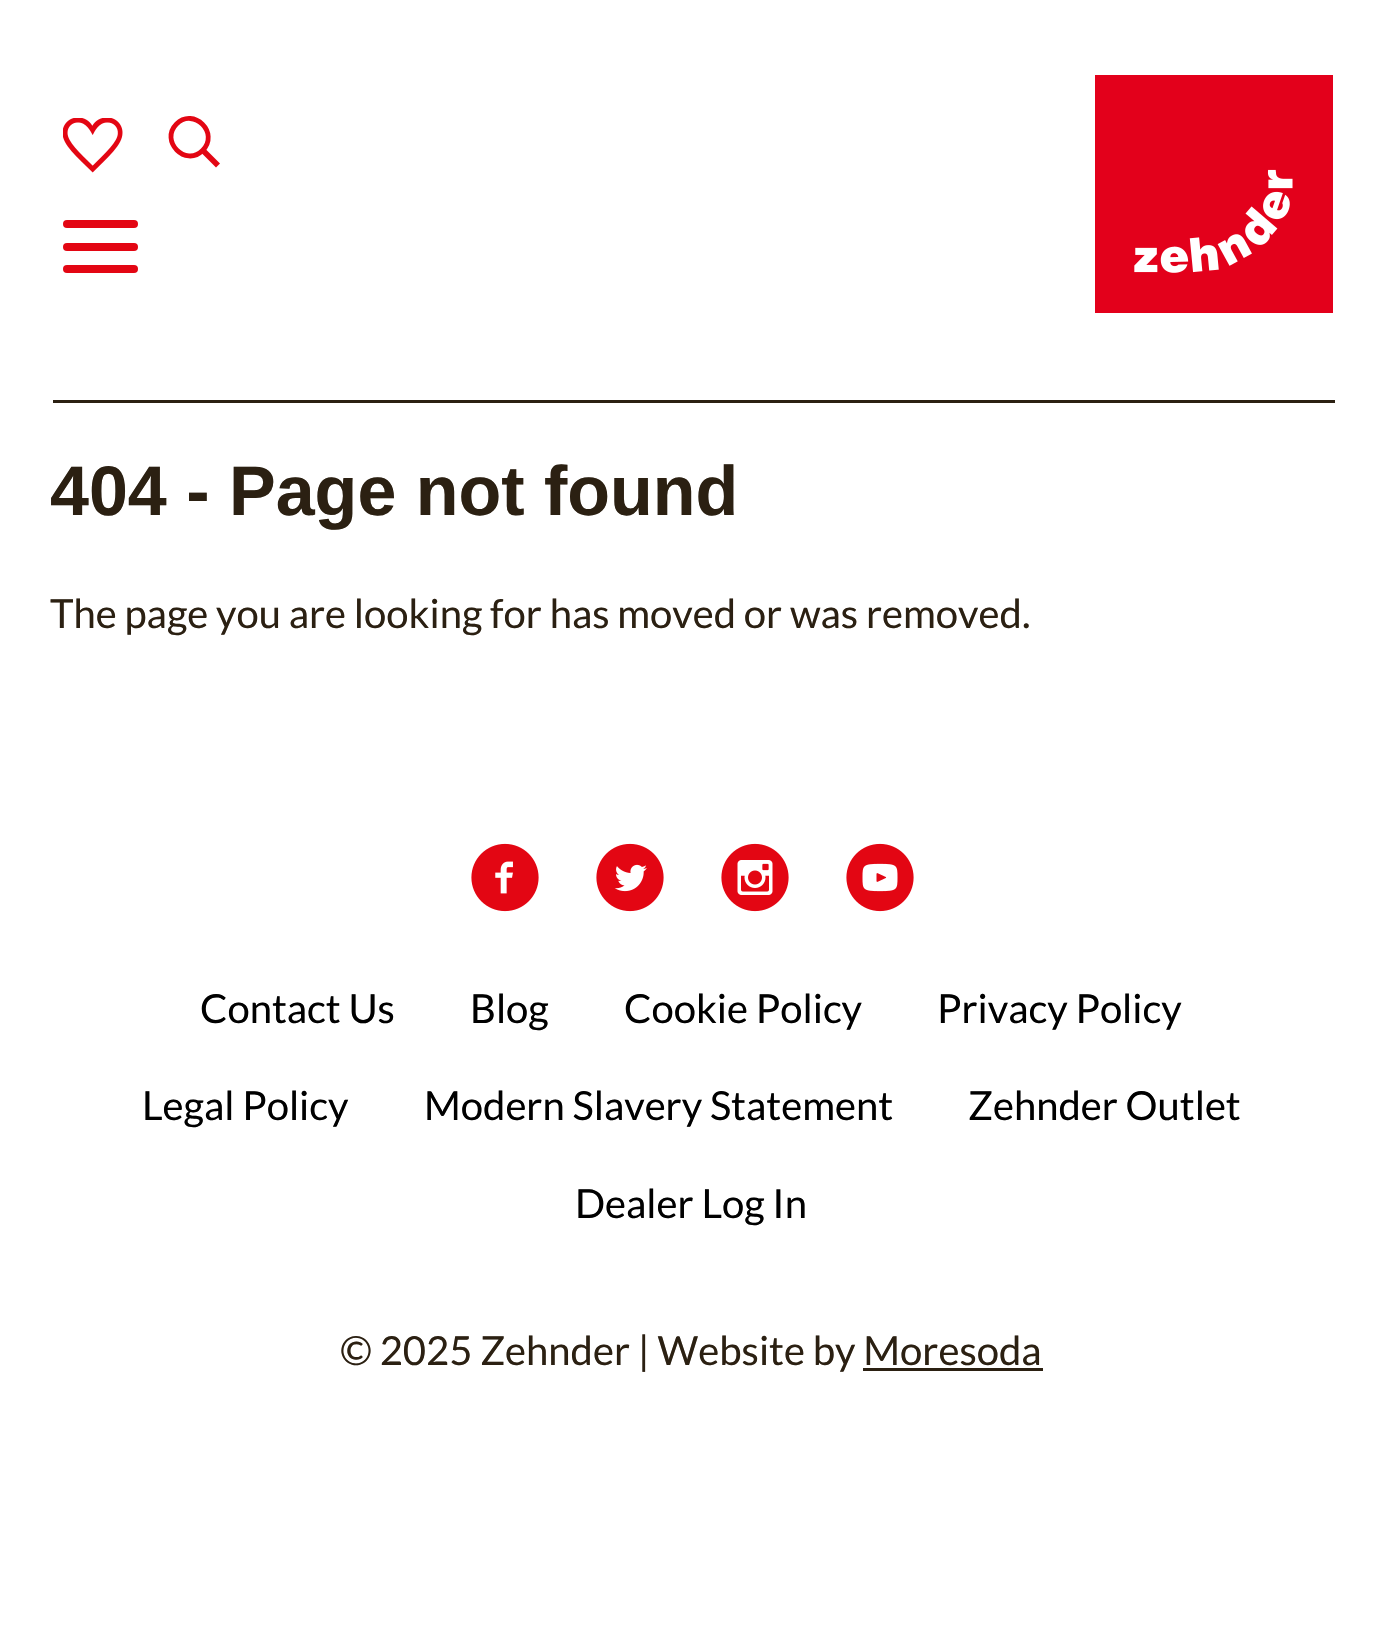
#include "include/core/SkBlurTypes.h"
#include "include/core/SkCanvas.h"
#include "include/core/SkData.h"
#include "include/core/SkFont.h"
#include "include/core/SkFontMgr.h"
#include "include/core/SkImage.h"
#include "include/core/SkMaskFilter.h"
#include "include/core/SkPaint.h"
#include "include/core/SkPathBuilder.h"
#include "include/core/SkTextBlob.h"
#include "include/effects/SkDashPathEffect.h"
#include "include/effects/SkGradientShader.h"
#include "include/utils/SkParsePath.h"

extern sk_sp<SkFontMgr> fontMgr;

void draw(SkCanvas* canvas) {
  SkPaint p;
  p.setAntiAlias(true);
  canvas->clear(SK_ColorWHITE);
  canvas->drawImageRect(SkImages::DeferredFromEncodedData(SkData::MakeFromFileName("images/1.png")), SkRect::MakeLTRB(63, 118, 123, 173), SkSamplingOptions());
  p.setStyle(SkPaint::kStroke_Style);
  p.setStrokeWidth(4.8f);
  p.setColor(SkColorSetRGB(227, 6, 19));
  canvas->drawPath(SkPathBuilder().moveTo(176.5f, 124).cubicTo(193.5f, 107, 220, 133, 202.5f, 150.5f).cubicTo(185.5f, 167.5f, 159.5f, 141, 176.5f, 124).close().detach(), p);
  p.setStyle(SkPaint::kFill_Style);
  canvas->drawPath(SkPathBuilder().moveTo(201, 152.5f).lineTo(205, 148.5f).lineTo(220, 163.5f).lineTo(216, 167.5f).close().detach(), p);
  canvas->drawRoundRect(SkRect::MakeLTRB(63, 243, 138, 251), 4, 4, p);
  canvas->drawRoundRect(SkRect::MakeLTRB(63, 220, 138, 228), 4, 4, p);
  canvas->drawRoundRect(SkRect::MakeLTRB(63, 265, 138, 273), 4, 4, p);
  canvas->drawImageRect(SkImages::DeferredFromEncodedData(SkData::MakeFromFileName("images/2.png")), SkRect::MakeLTRB(1095, 75, 1333, 313), SkSamplingOptions());
  p.setColor(SkColorSetRGB(43, 32, 18));
  canvas->drawRect(SkRect::MakeLTRB(53, 400, 1335, 403), p);
  canvas->drawImageRect(SkImages::DeferredFromEncodedData(SkData::MakeFromFileName("images/3.png")), SkRect::MakeLTRB(471, 843, 539, 912), SkSamplingOptions());
  canvas->drawImageRect(SkImages::DeferredFromEncodedData(SkData::MakeFromFileName("images/4.png")), SkRect::MakeLTRB(596, 843, 664, 912), SkSamplingOptions());
  canvas->drawImageRect(SkImages::DeferredFromEncodedData(SkData::MakeFromFileName("images/5.png")), SkRect::MakeLTRB(721, 843, 789, 912), SkSamplingOptions());
  canvas->drawImageRect(SkImages::DeferredFromEncodedData(SkData::MakeFromFileName("images/6.png")), SkRect::MakeLTRB(846, 843, 914, 912), SkSamplingOptions());
  canvas->drawRect(SkRect::MakeLTRB(863, 1368, 1043, 1371), p);
  SkFont font1(fontMgr->matchFamilyStyle("Liberation Sans", SkFontStyle::Bold()), 70);
  font1.setSubpixel(true);
  canvas->drawString("404 - Page not found", 50, 515, font1, p);
  SkFont font2(fontMgr->matchFamilyStyle("Lato", SkFontStyle::Normal()), 40);
  font2.setSubpixel(true);
  canvas->drawString("The page you are looking for has moved or was removed.", 50, 628, font2, p);
  p.setColor(SK_ColorBLACK);
  canvas->drawString("Contact Us", 200, 1023, font2, p);
  canvas->drawString("Blog", 470, 1023, font2, p);
  canvas->drawString("Cookie Policy", 624, 1023, font2, p);
  canvas->drawString("Privacy Policy", 937, 1023, font2, p);
  canvas->drawString("Legal Policy", 142, 1120, font2, p);
  canvas->drawString("Modern Slavery Statement", 424, 1120, font2, p);
  canvas->drawString("Zehnder Outlet", 968, 1120, font2, p);
  canvas->drawString("Dealer Log In", 575, 1218, font2, p);
  p.setColor(SkColorSetRGB(43, 32, 18));
  canvas->drawString("© 2025 Zehnder | Website by Moresoda", 340, 1365, font2, p);
}
